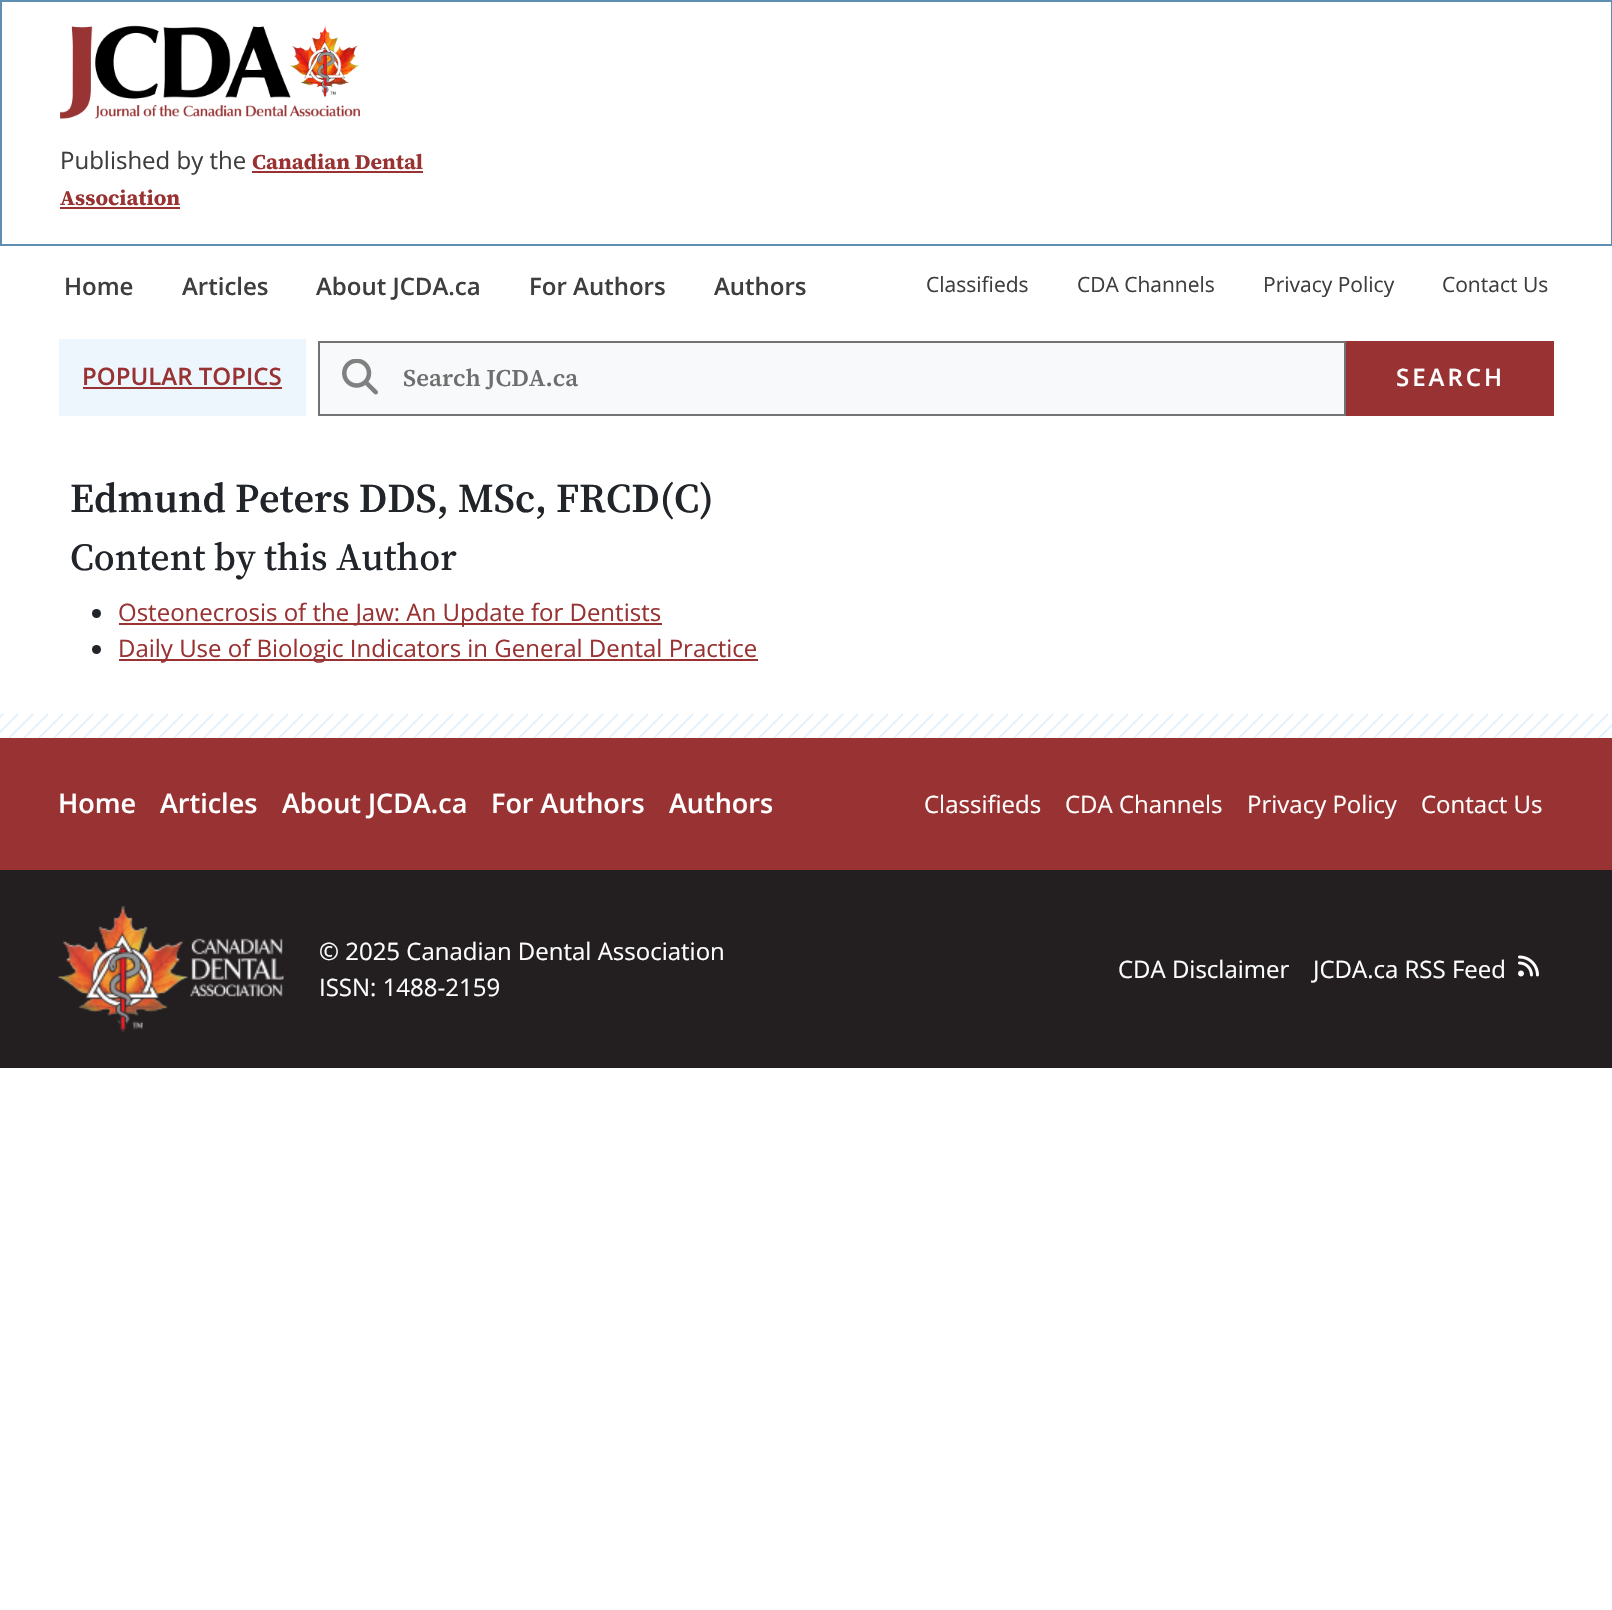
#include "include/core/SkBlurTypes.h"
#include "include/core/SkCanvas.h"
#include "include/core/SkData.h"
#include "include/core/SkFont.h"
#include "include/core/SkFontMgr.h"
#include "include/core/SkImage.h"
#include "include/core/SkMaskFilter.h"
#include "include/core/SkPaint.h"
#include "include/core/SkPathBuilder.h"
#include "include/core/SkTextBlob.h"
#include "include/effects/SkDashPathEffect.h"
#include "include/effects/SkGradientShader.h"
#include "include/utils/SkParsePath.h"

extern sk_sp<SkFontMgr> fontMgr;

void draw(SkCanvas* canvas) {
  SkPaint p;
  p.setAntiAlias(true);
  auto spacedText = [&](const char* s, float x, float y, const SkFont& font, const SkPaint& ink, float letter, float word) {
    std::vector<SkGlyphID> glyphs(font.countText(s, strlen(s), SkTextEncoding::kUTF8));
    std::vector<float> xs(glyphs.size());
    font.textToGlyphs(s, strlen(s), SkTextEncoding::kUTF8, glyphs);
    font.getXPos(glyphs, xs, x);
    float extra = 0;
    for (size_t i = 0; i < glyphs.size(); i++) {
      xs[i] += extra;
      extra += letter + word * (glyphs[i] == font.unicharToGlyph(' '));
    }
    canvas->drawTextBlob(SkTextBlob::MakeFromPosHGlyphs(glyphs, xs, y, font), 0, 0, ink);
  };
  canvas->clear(SK_ColorWHITE);
  p.setStyle(SkPaint::kStroke_Style);
  p.setStrokeWidth(2);
  p.setColor(SkColorSetRGB(94, 142, 177));
  canvas->drawRect(SkRect::MakeLTRB(1, 1, 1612, 245), p);
  canvas->drawImageRect(SkImages::DeferredFromEncodedData(SkData::MakeFromFileName("images/1.png")), SkRect::MakeLTRB(60, 25, 360, 119), SkSamplingOptions());
  p.setStyle(SkPaint::kFill_Style);
  p.setColor(SkColorSetRGB(153, 51, 51));
  canvas->drawRect(SkRect::MakeLTRB(252, 171, 423, 173), p);
  canvas->drawRect(SkRect::MakeLTRB(60, 207, 180, 209), p);
  p.setColor(SkColorSetRGB(237, 246, 252));
  canvas->drawRect(SkRect::MakeLTRB(59, 339, 306, 416), p);
  p.setColor(SkColorSetRGB(153, 51, 51));
  canvas->drawRect(SkRect::MakeLTRB(83, 387, 282, 389), p);
  p.setColor(SkColorSetRGB(247, 249, 251));
  canvas->drawRect(SkRect::MakeLTRB(319, 342, 1345, 415), p);
  p.setStyle(SkPaint::kStroke_Style);
  p.setColor(SkColorSetRGB(115, 115, 115));
  canvas->drawRect(SkRect::MakeLTRB(319, 342, 1345, 415), p);
  canvas->drawImageRect(SkImages::DeferredFromEncodedData(SkData::MakeFromFileName("images/2.png")), SkRect::MakeLTRB(342, 359, 378, 395), SkSamplingOptions());
  p.setStyle(SkPaint::kFill_Style);
  p.setColor(SkColorSetRGB(153, 51, 51));
  canvas->drawRect(SkRect::MakeLTRB(1346, 341, 1554, 416), p);
  p.setColor(SkColorSetRGB(33, 37, 41));
  canvas->drawCircle(96.5f, 613.5f, 4.5f, p);
  p.setColor(SkColorSetRGB(153, 51, 51));
  canvas->drawRect(SkRect::MakeLTRB(119, 623, 662, 625), p);
  p.setColor(SkColorSetRGB(33, 37, 41));
  canvas->drawCircle(96.5f, 649.5f, 4.5f, p);
  p.setColor(SkColorSetRGB(153, 51, 51));
  canvas->drawRect(SkRect::MakeLTRB(119, 659, 758, 661), p);
  canvas->drawImageRect(SkImages::DeferredFromEncodedData(SkData::MakeFromFileName("images/3.png")), SkRect::MakeLTRB(0, 714, 1612, 738), SkSamplingOptions());
  canvas->drawRect(SkRect::MakeLTRB(0, 738, 1612, 870), p);
  p.setColor(SkColorSetRGB(35, 31, 32));
  canvas->drawRect(SkRect::MakeLTRB(0, 870, 1612, 1068), p);
  canvas->drawImageRect(SkImages::DeferredFromEncodedData(SkData::MakeFromFileName("images/4.png")), SkRect::MakeLTRB(58, 906, 284, 1032), SkSamplingOptions());
  canvas->drawImageRect(SkImages::DeferredFromEncodedData(SkData::MakeFromFileName("images/5.png")), SkRect::MakeLTRB(1518, 955, 1539, 977), SkSamplingOptions());
  SkFont font1(fontMgr->matchFamilyStyle("Open Sans", SkFontStyle::Normal()), 24);
  font1.setSubpixel(true);
  p.setColor(SkColorSetRGB(62, 62, 62));
  canvas->drawString("Published by the", 60, 169, font1, p);
  SkFont font2(fontMgr->matchFamilyStyle("Source Serif 4", SkFontStyle::Bold()), 21);
  font2.setSubpixel(true);
  p.setColor(SkColorSetRGB(153, 51, 51));
  canvas->drawString("Canadian Dental", 252, 169, font2, p);
  canvas->drawString("Association", 60, 205, font2, p);
  SkFont font3(fontMgr->matchFamilyStyle("Open Sans", SkFontStyle(600, SkFontStyle::kNormal_Width, SkFontStyle::kUpright_Slant)), 24);
  font3.setSubpixel(true);
  p.setColor(SkColorSetRGB(62, 62, 62));
  canvas->drawString("Home", 64, 295, font3, p);
  canvas->drawString("Articles", 182, 295, font3, p);
  canvas->drawString("About JCDA.ca", 316, 295, font3, p);
  canvas->drawString("For Authors", 529, 295, font3, p);
  canvas->drawString("Authors", 714, 295, font3, p);
  SkFont font4(fontMgr->matchFamilyStyle("Open Sans", SkFontStyle::Normal()), 21);
  font4.setSubpixel(true);
  canvas->drawString("Classifieds", 926, 292, font4, p);
  canvas->drawString("CDA Channels", 1077, 292, font4, p);
  canvas->drawString("Privacy Policy", 1263, 292, font4, p);
  canvas->drawString("Contact Us", 1442, 292, font4, p);
  p.setColor(SkColorSetRGB(153, 51, 51));
  canvas->drawString("POPULAR TOPICS", 82, 385, font3, p);
  SkFont font5(fontMgr->matchFamilyStyle("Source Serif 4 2", SkFontStyle(600, SkFontStyle::kNormal_Width, SkFontStyle::kUpright_Slant)), 24);
  font5.setSubpixel(true);
  p.setColor(SkColorSetRGB(110, 110, 110));
  canvas->drawString("Search JCDA.ca", 403, 386, font5, p);
  p.setColor(SK_ColorWHITE);
  spacedText("SEARCH", 1396, 386, font3, p, 3, 0);
  SkFont font6(fontMgr->matchFamilyStyle("Source Serif 4", SkFontStyle(600, SkFontStyle::kNormal_Width, SkFontStyle::kUpright_Slant)), 40.9f);
  font6.setSubpixel(true);
  p.setColor(SkColorSetRGB(33, 37, 41));
  canvas->drawString("Edmund Peters DDS, MSc, FRCD(C)", 70, 512, font6, p);
  SkFont font7(fontMgr->matchFamilyStyle("Source Serif 4", SkFontStyle(500, SkFontStyle::kNormal_Width, SkFontStyle::kUpright_Slant)), 38.25f);
  font7.setSubpixel(true);
  canvas->drawString("Content by this Author", 70, 570, font7, p);
  p.setColor(SkColorSetRGB(153, 51, 51));
  canvas->drawString("Osteonecrosis of the Jaw: An Update for Dentists", 118, 621, font1, p);
  canvas->drawString("Daily Use of Biologic Indicators in General Dental Practice", 118, 657, font1, p);
  SkFont font8(fontMgr->matchFamilyStyle("Open Sans", SkFontStyle(600, SkFontStyle::kNormal_Width, SkFontStyle::kUpright_Slant)), 27);
  font8.setSubpixel(true);
  p.setColor(SK_ColorWHITE);
  canvas->drawString("Home", 58, 813, font8, p);
  canvas->drawString("Articles", 160, 813, font8, p);
  canvas->drawString("About JCDA.ca", 282, 813, font8, p);
  canvas->drawString("For Authors", 491, 813, font8, p);
  canvas->drawString("Authors", 669, 813, font8, p);
  canvas->drawString("Classifieds", 924, 813, font1, p);
  canvas->drawString("CDA Channels", 1065, 813, font1, p);
  canvas->drawString("Privacy Policy", 1247, 813, font1, p);
  canvas->drawString("Contact Us", 1421, 813, font1, p);
  canvas->drawString("© 2025 Canadian Dental Association", 319, 960, font1, p);
  canvas->drawString("ISSN: 1488-2159", 319, 996, font1, p);
  canvas->drawString("CDA Disclaimer", 1118, 978, font1, p);
  canvas->drawString("JCDA.ca RSS Feed", 1313, 978, font1, p);
}
